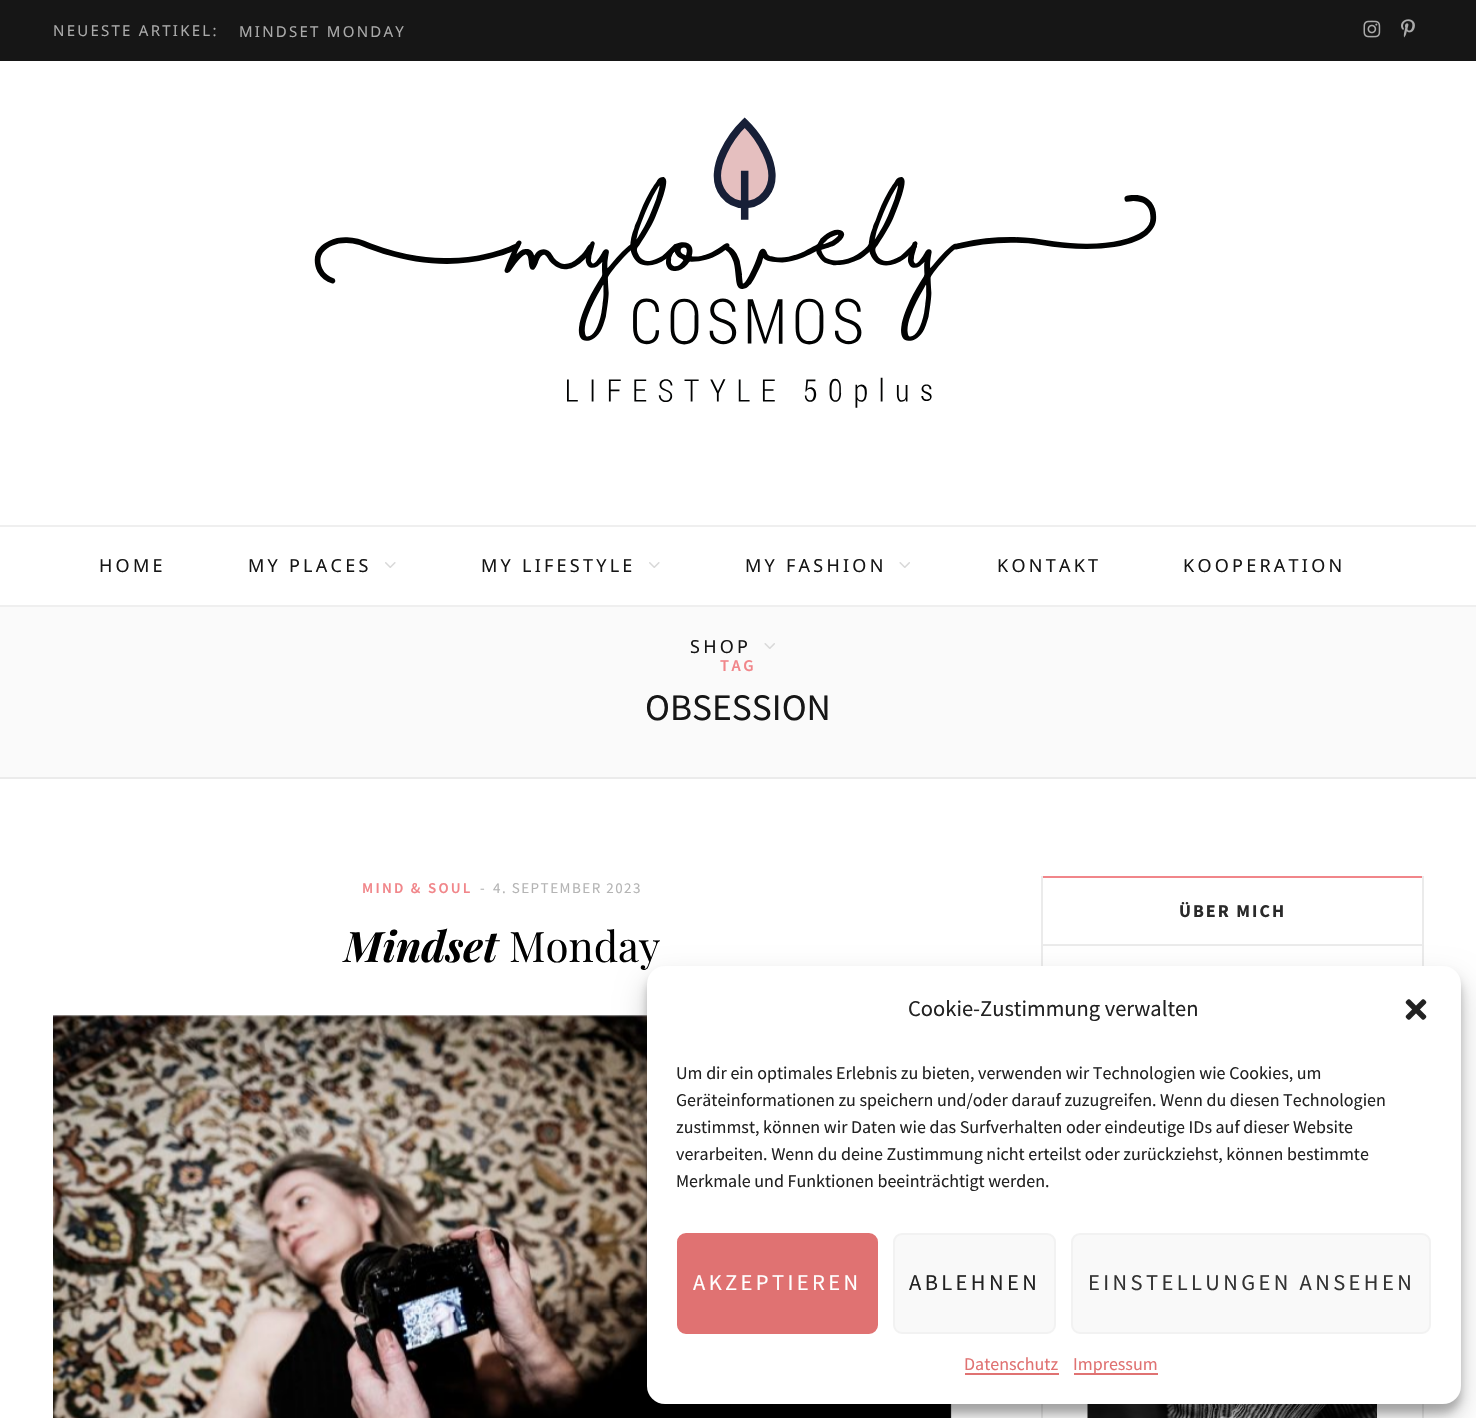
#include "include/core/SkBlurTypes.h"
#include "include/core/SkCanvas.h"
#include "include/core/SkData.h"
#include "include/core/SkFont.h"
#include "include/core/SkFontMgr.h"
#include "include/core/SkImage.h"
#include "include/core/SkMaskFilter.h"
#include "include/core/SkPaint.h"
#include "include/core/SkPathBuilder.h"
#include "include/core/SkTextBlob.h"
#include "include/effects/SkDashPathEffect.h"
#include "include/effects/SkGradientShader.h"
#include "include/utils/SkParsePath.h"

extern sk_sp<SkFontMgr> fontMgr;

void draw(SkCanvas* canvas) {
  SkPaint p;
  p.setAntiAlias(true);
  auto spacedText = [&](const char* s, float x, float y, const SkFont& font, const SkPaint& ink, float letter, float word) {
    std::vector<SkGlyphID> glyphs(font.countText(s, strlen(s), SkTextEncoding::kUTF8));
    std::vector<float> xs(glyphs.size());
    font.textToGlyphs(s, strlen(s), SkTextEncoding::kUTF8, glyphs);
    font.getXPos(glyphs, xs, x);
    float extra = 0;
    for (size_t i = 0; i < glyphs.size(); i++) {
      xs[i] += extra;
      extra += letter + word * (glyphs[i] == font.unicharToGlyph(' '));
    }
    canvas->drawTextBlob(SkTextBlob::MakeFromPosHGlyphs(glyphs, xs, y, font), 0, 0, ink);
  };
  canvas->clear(SK_ColorWHITE);
  p.setColor(SkColorSetRGB(22, 22, 22));
  canvas->drawRect(SkRect::MakeLTRB(0, 0, 1476, 61), p);
  canvas->drawImageRect(SkImages::DeferredFromEncodedData(SkData::MakeFromFileName("images/1.png")), SkRect::MakeLTRB(1363, 20, 1381, 38), SkSamplingOptions());
  canvas->drawImageRect(SkImages::DeferredFromEncodedData(SkData::MakeFromFileName("images/2.png")), SkRect::MakeLTRB(1401, 19, 1415, 38), SkSamplingOptions());
  canvas->drawImageRect(SkImages::DeferredFromEncodedData(SkData::MakeFromFileName("images/3.png")), SkRect::MakeLTRB(314, 117, 1157, 408), SkSamplingOptions());
  p.setColor(SkColorSetRGB(239, 239, 239));
  canvas->drawRect(SkRect::MakeLTRB(0, 525, 1476, 527), p);
  canvas->drawRect(SkRect::MakeLTRB(0, 605, 1476, 607), p);
  canvas->drawImageRect(SkImages::DeferredFromEncodedData(SkData::MakeFromFileName("images/4.png")), SkRect::MakeLTRB(385, 562, 396, 568), SkSamplingOptions());
  canvas->drawImageRect(SkImages::DeferredFromEncodedData(SkData::MakeFromFileName("images/4.png")), SkRect::MakeLTRB(649, 562, 660, 568), SkSamplingOptions());
  canvas->drawImageRect(SkImages::DeferredFromEncodedData(SkData::MakeFromFileName("images/5.png")), SkRect::MakeLTRB(899, 562, 910, 568), SkSamplingOptions());
  p.setColor(SkColorSetRGB(250, 250, 250));
  canvas->drawRect(SkRect::MakeLTRB(0, 607, 1476, 777), p);
  canvas->drawImageRect(SkImages::DeferredFromEncodedData(SkData::MakeFromFileName("images/6.png")), SkRect::MakeLTRB(764, 643, 775, 649), SkSamplingOptions());
  p.setColor(SkColorSetRGB(235, 235, 235));
  canvas->drawRect(SkRect::MakeLTRB(0, 777, 1476, 779), p);
  canvas->drawImageRect(SkImages::DeferredFromEncodedData(SkData::MakeFromFileName("images/7.png")), SkRect::MakeLTRB(53, 1015, 952, 1418), SkSamplingOptions());
  p.setStyle(SkPaint::kStroke_Style);
  p.setStrokeWidth(2);
  canvas->drawRect(SkRect::MakeLTRB(1042, 877, 1423, 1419), p);
  p.setStyle(SkPaint::kFill_Style);
  p.setColor(SkColorSetRGB(241, 134, 138));
  canvas->drawRect(SkRect::MakeLTRB(1041, 876, 1424, 878), p);
  p.setColor(SkColorSetRGB(235, 235, 235));
  canvas->drawRect(SkRect::MakeLTRB(1422, 876, 1424, 878), p);
  canvas->drawRect(SkRect::MakeLTRB(1041, 944, 1424, 946), p);
  canvas->drawRect(SkRect::MakeLTRB(1041, 876, 1043, 878), p);
  canvas->drawImageRect(SkImages::DeferredFromEncodedData(SkData::MakeFromFileName("images/8.png")), SkRect::MakeLTRB(1087, 1404, 1377, 1418), SkSamplingOptions());
  p.setColor(SkColorSetARGB(59, 0, 0, 0));
  p.setMaskFilter(SkMaskFilter::MakeBlur(kNormal_SkBlurStyle, 4.5f));
  canvas->drawRoundRect(SkRect::MakeLTRB(647, 975, 1461, 1413), 18, 18, p);
  p.setMaskFilter(nullptr);
  p.setColor(SkColorSetARGB(48, 0, 0, 0));
  p.setMaskFilter(SkMaskFilter::MakeBlur(kNormal_SkBlurStyle, 15));
  canvas->drawRoundRect(SkRect::MakeLTRB(647, 981, 1461, 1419), 18, 18, p);
  p.setMaskFilter(nullptr);
  SkFont font1(fontMgr->matchFamilyStyle("Noto Sans", SkFontStyle::Normal()), 15);
  font1.setSubpixel(true);
  p.setColor(SkColorSetRGB(170, 170, 170));
  spacedText("NEUESTE ARTIKEL:", 53, 36, font1, p, 2.25f, 0);
  spacedText("MINDSET MONDAY", 239, 37, font1, p, 2.25f, 0);
  SkFont font2(fontMgr->matchFamilyStyle("Noto Sans", SkFontStyle::Normal()), 18);
  font2.setSubpixel(true);
  p.setColor(SkColorSetRGB(22, 22, 22));
  spacedText("HOME", 99, 572, font2, p, 3.25f, 0);
  spacedText("MY PLACES", 248, 572, font2, p, 3.25f, 0);
  spacedText("MY LIFESTYLE", 481, 572, font2, p, 3.25f, 0);
  spacedText("MY FASHION", 745, 572, font2, p, 3.25f, 0);
  spacedText("KONTAKT", 997, 572, font2, p, 3.25f, 0);
  spacedText("KOOPERATION", 1183, 572, font2, p, 3.25f, 0);
  spacedText("SHOP", 690, 653, font2, p, 3.25f, 0);
  SkFont font3(fontMgr->matchFamilyStyle("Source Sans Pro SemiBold", SkFontStyle(600, SkFontStyle::kNormal_Width, SkFontStyle::kUpright_Slant)), 16.5f);
  font3.setSubpixel(true);
  p.setColor(SkColorSetRGB(241, 134, 138));
  spacedText("TAG", 720, 671, font3, p, 2.5f, 0);
  SkFont font4(fontMgr->matchFamilyStyle("Source Sans Pro", SkFontStyle::Normal()), 37.5f);
  font4.setSubpixel(true);
  p.setColor(SkColorSetRGB(22, 22, 22));
  canvas->drawString("OBSESSION", 645, 720, font4, p);
  SkFont font5(fontMgr->matchFamilyStyle("Source Sans Pro SemiBold", SkFontStyle(600, SkFontStyle::kNormal_Width, SkFontStyle::kUpright_Slant)), 15);
  font5.setSubpixel(true);
  p.setColor(SkColorSetRGB(241, 134, 138));
  spacedText("MIND & SOUL", 362, 893, font5, p, 2.25f, 0);
  SkFont font6(fontMgr->matchFamilyStyle("Source Sans Pro", SkFontStyle::Normal()), 15);
  font6.setSubpixel(true);
  p.setColor(SkColorSetRGB(180, 180, 180));
  canvas->drawString("-", 480, 893, font6, p);
  spacedText("4. SEPTEMBER 2023", 493, 893, font6, p, 1.5f, 0);
  SkFont font7(fontMgr->matchFamilyStyle("Playfair Display", SkFontStyle::BoldItalic()), 42);
  font7.setSubpixel(true);
  p.setColor(SK_ColorBLACK);
  canvas->drawString("Mindset", 344, 962, font7, p);
  SkFont font8(fontMgr->matchFamilyStyle("Playfair Display", SkFontStyle::Normal()), 42);
  font8.setSubpixel(true);
  canvas->drawString("Monday", 509, 962, font8, p);
  SkFont font9(fontMgr->matchFamilyStyle("Source Sans Pro", SkFontStyle::Bold()), 18);
  font9.setSubpixel(true);
  p.setColor(SkColorSetRGB(42, 42, 42));
  spacedText("ÜBER MICH", 1179, 917, font9, p, 2, 0);
  p.setColor(SK_ColorWHITE);
  canvas->drawRoundRect(SkRect::MakeLTRB(647, 966, 1461, 1404), 18, 18, p);
  SkFont font10(fontMgr->matchFamilyStyle("Source Sans Pro", SkFontStyle::Normal()), 22.5f);
  font10.setSubpixel(true);
  p.setColor(SkColorSetRGB(34, 34, 34));
  canvas->drawString("Cookie-Zustimmung verwalten", 908, 1016, font10, p);
  canvas->drawImageRect(SkImages::DeferredFromEncodedData(SkData::MakeFromFileName("images/9.png")), SkRect::MakeLTRB(1405, 999, 1427, 1020), SkSamplingOptions());
  SkFont font11(fontMgr->matchFamilyStyle("Source Sans Pro", SkFontStyle::Normal()), 18);
  font11.setSubpixel(true);
  canvas->drawString("Um dir ein optimales Erlebnis zu bieten, verwenden wir Technologien wie Cookies, um", 676, 1079, font11, p);
  canvas->drawString("Geräteinformationen zu speichern und/oder darauf zuzugreifen. Wenn du diesen Technologien", 676, 1106, font11, p);
  canvas->drawString("zustimmst, können wir Daten wie das Surfverhalten oder eindeutige IDs auf dieser Website", 676, 1133, font11, p);
  canvas->drawString("verarbeiten. Wenn du deine Zustimmung nicht erteilst oder zurückziehst, können bestimmte", 676, 1160, font11, p);
  canvas->drawString("Merkmale und Funktionen beeinträchtigt werden.", 676, 1187, font11, p);
  p.setColor(SkColorSetRGB(224, 114, 114));
  canvas->drawRoundRect(SkRect::MakeLTRB(678, 1234, 877, 1333), 8, 8, p);
  p.setStyle(SkPaint::kStroke_Style);
  canvas->drawRoundRect(SkRect::MakeLTRB(678, 1234, 877, 1333), 8, 8, p);
  p.setStyle(SkPaint::kFill_Style);
  p.setColor(SK_ColorWHITE);
  spacedText("AKZEPTIEREN", 693, 1290, font10, p, 3.4f, 0);
  p.setColor(SkColorSetRGB(249, 249, 249));
  canvas->drawRoundRect(SkRect::MakeLTRB(894, 1234, 1055, 1333), 8, 8, p);
  p.setStyle(SkPaint::kStroke_Style);
  p.setColor(SkColorSetRGB(242, 242, 242));
  canvas->drawRoundRect(SkRect::MakeLTRB(894, 1234, 1055, 1333), 8, 8, p);
  p.setStyle(SkPaint::kFill_Style);
  p.setColor(SkColorSetRGB(34, 34, 34));
  spacedText("ABLEHNEN", 909, 1290, font10, p, 3.4f, 0);
  p.setColor(SkColorSetRGB(249, 249, 249));
  canvas->drawRoundRect(SkRect::MakeLTRB(1072, 1234, 1430, 1333), 8, 8, p);
  p.setStyle(SkPaint::kStroke_Style);
  p.setColor(SkColorSetRGB(242, 242, 242));
  canvas->drawRoundRect(SkRect::MakeLTRB(1072, 1234, 1430, 1333), 8, 8, p);
  p.setStyle(SkPaint::kFill_Style);
  p.setColor(SkColorSetRGB(51, 51, 51));
  spacedText("EINSTELLUNGEN ANSEHEN", 1088, 1290, font10, p, 3.4f, 0);
  p.setColor(SkColorSetRGB(224, 114, 114));
  canvas->drawString("Datenschutz", 964, 1370, font11, p);
  canvas->drawRect(SkRect::MakeLTRB(965, 1373, 1059, 1375), p);
  canvas->drawRect(SkRect::MakeLTRB(1074, 1373, 1158, 1375), p);
  canvas->drawString("Impressum", 1073, 1370, font11, p);
}
